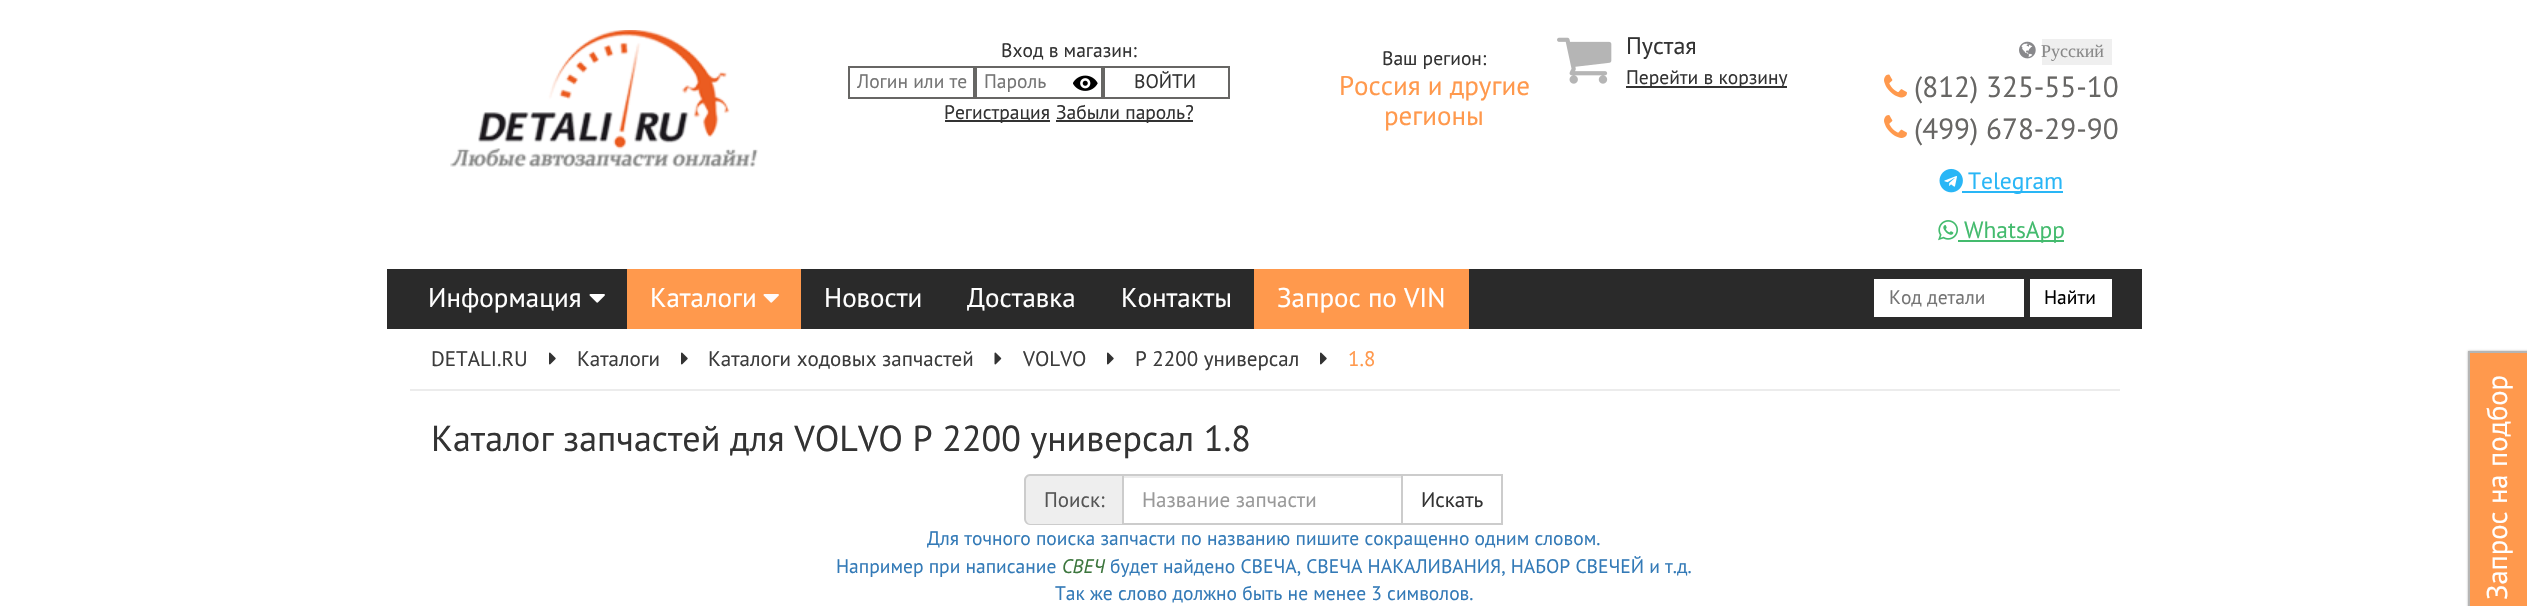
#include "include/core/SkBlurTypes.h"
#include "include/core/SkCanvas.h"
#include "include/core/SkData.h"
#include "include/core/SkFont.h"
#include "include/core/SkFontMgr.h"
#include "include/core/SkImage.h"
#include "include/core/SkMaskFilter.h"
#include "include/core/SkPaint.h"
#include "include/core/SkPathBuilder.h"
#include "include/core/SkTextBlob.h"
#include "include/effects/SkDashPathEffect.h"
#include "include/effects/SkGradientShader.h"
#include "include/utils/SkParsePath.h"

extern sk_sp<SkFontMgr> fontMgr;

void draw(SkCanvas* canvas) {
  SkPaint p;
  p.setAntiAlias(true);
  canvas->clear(SK_ColorWHITE);
  canvas->drawImageRect(SkImages::DeferredFromEncodedData(SkData::MakeFromFileName("images/1.png")), SkRect::MakeLTRB(450, 30, 758, 167), SkSamplingOptions());
  p.setStyle(SkPaint::kStroke_Style);
  p.setStrokeWidth(2);
  p.setColor(SkColorSetRGB(103, 102, 100));
  canvas->drawRect(SkRect::MakeLTRB(849, 67, 974, 98), p);
  canvas->drawRect(SkRect::MakeLTRB(976, 67, 1102, 98), p);
  canvas->drawImageRect(SkImages::DeferredFromEncodedData(SkData::MakeFromFileName("images/2.png")), SkRect::MakeLTRB(1073, 75, 1098, 91), SkSamplingOptions());
  canvas->drawRect(SkRect::MakeLTRB(1104, 67, 1229, 98), p);
  p.setStyle(SkPaint::kFill_Style);
  p.setColor(SkColorSetRGB(51, 51, 51));
  canvas->drawRect(SkRect::MakeLTRB(945, 120, 1050, 122), p);
  canvas->drawRect(SkRect::MakeLTRB(1056, 120, 1193, 122), p);
  canvas->drawImageRect(SkImages::DeferredFromEncodedData(SkData::MakeFromFileName("images/3.png")), SkRect::MakeLTRB(1557, 37, 1612, 84), SkSamplingOptions());
  canvas->drawRect(SkRect::MakeLTRB(1626, 86, 1787, 88), p);
  canvas->drawImageRect(SkImages::DeferredFromEncodedData(SkData::MakeFromFileName("images/4.png")), SkRect::MakeLTRB(2019, 41, 2036, 59), SkSamplingOptions());
  p.setColor(SkColorSetRGB(239, 239, 239));
  canvas->drawRect(SkRect::MakeLTRB(2042, 39, 2112, 65), p);
  canvas->drawImageRect(SkImages::DeferredFromEncodedData(SkData::MakeFromFileName("images/5.png")), SkRect::MakeLTRB(1884, 74, 1907, 98), SkSamplingOptions());
  canvas->drawImageRect(SkImages::DeferredFromEncodedData(SkData::MakeFromFileName("images/6.png")), SkRect::MakeLTRB(1884, 115, 1907, 138), SkSamplingOptions());
  canvas->drawImageRect(SkImages::DeferredFromEncodedData(SkData::MakeFromFileName("images/7.png")), SkRect::MakeLTRB(1939, 168, 1963, 193), SkSamplingOptions());
  p.setColor(SkColorSetRGB(41, 182, 246));
  canvas->drawRect(SkRect::MakeLTRB(1962, 191, 2063, 193), p);
  canvas->drawImageRect(SkImages::DeferredFromEncodedData(SkData::MakeFromFileName("images/8.png")), SkRect::MakeLTRB(1938, 220, 1959, 241), SkSamplingOptions());
  p.setColor(SkColorSetRGB(68, 187, 110));
  canvas->drawRect(SkRect::MakeLTRB(1958, 240, 2064, 242), p);
  p.setColor(SkColorSetRGB(42, 42, 42));
  canvas->drawRect(SkRect::MakeLTRB(387, 269, 2142, 329), p);
  canvas->drawImageRect(SkImages::DeferredFromEncodedData(SkData::MakeFromFileName("images/9.png")), SkRect::MakeLTRB(589, 294, 605, 303), SkSamplingOptions());
  p.setColor(SkColorSetRGB(255, 153, 77));
  canvas->drawRect(SkRect::MakeLTRB(627, 269, 801, 329), p);
  canvas->drawImageRect(SkImages::DeferredFromEncodedData(SkData::MakeFromFileName("images/10.png")), SkRect::MakeLTRB(763, 294, 779, 303), SkSamplingOptions());
  canvas->drawRect(SkRect::MakeLTRB(1254, 269, 1469, 329), p);
  p.setColor(SK_ColorWHITE);
  canvas->drawRect(SkRect::MakeLTRB(1874, 279, 2024, 317), p);
  canvas->drawRect(SkRect::MakeLTRB(2030, 279, 2112, 317), p);
  p.setColor(SkColorSetRGB(236, 236, 236));
  canvas->drawRect(SkRect::MakeLTRB(410, 389, 2120, 391), p);
  canvas->drawImageRect(SkImages::DeferredFromEncodedData(SkData::MakeFromFileName("images/11.png")), SkRect::MakeLTRB(549, 352, 556, 365), SkSamplingOptions());
  canvas->drawImageRect(SkImages::DeferredFromEncodedData(SkData::MakeFromFileName("images/11.png")), SkRect::MakeLTRB(681, 352, 688, 365), SkSamplingOptions());
  canvas->drawImageRect(SkImages::DeferredFromEncodedData(SkData::MakeFromFileName("images/12.png")), SkRect::MakeLTRB(994, 352, 1002, 365), SkSamplingOptions());
  canvas->drawImageRect(SkImages::DeferredFromEncodedData(SkData::MakeFromFileName("images/11.png")), SkRect::MakeLTRB(1107, 352, 1114, 365), SkSamplingOptions());
  canvas->drawImageRect(SkImages::DeferredFromEncodedData(SkData::MakeFromFileName("images/11.png")), SkRect::MakeLTRB(1320, 352, 1327, 365), SkSamplingOptions());
  p.setColor(SkColorSetRGB(238, 238, 238));
  canvas->drawPath(SkPathBuilder().moveTo(1031, 474).lineTo(1122, 474).lineTo(1122, 525).lineTo(1031, 525).cubicTo(1027.5f, 525, 1025, 522.5f, 1025, 519).lineTo(1025, 480).cubicTo(1025, 476.5f, 1027.5f, 474, 1031, 474).close().detach(), p);
  p.setColor(SkColorSetRGB(204, 204, 204));
  canvas->drawPath(SkPathBuilder(SkPathFillType::kEvenOdd).moveTo(1030, 474).lineTo(1122, 474).lineTo(1122, 525).lineTo(1030, 525).cubicTo(1027, 525, 1024, 522, 1024, 519).lineTo(1024, 480).cubicTo(1024, 477, 1027, 474, 1030, 474).close().moveTo(1030, 476).lineTo(1122, 476).lineTo(1122, 524).lineTo(1030, 524).cubicTo(1028, 524, 1026, 521, 1026, 519).lineTo(1026, 480).cubicTo(1026, 478, 1028, 476, 1030, 476).close().detach(), p);
  p.setColor(SkColorSetRGB(236, 236, 236));
  canvas->drawRect(SkRect::MakeLTRB(1124, 476, 1401, 478), p);
  p.setStyle(SkPaint::kStroke_Style);
  p.setColor(SkColorSetRGB(204, 204, 204));
  canvas->drawRect(SkRect::MakeLTRB(1123, 475, 1402, 524), p);
  canvas->drawRect(SkRect::MakeLTRB(1402, 475, 1502, 524), p);
  p.setStyle(SkPaint::kFill_Style);
  p.setColor(SkColorSetRGB(177, 176, 175));
  p.setMaskFilter(SkMaskFilter::MakeBlur(kNormal_SkBlurStyle, 1));
  canvas->drawRect(SkRect::MakeLTRB(2468, 351, 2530, 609), p);
  p.setMaskFilter(nullptr);
  p.setColor(SkColorSetRGB(255, 153, 77));
  canvas->drawRect(SkRect::MakeLTRB(2470, 353, 2527, 606), p);
  p.setColor(SkColorSetRGB(181, 181, 181));
  canvas->drawRect(SkRect::MakeLTRB(2468, 351, 2527, 353), p);
  canvas->drawRect(SkRect::MakeLTRB(2468, 351, 2469, 606), p);
  SkFont font1(fontMgr->matchFamilyStyle("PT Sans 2", SkFontStyle::Normal()), 19.5f);
  font1.setSubpixel(true);
  p.setColor(SkColorSetRGB(51, 51, 51));
  canvas->drawString("Вход в магазин:", 1001, 57, font1, p);
  p.setColor(SkColorSetRGB(117, 117, 117));
  canvas->drawString("Логин или те", 857, 88, font1, p);
  canvas->drawString("Пароль", 984, 88, font1, p);
  p.setColor(SkColorSetRGB(51, 51, 51));
  canvas->drawString("ВОЙТИ", 1134, 88, font1, p);
  canvas->drawString("Регистрация", 944, 119, font1, p);
  canvas->drawString("Забыли пароль?", 1056, 119, font1, p);
  canvas->drawString("Ваш регион:", 1382, 65, font1, p);
  SkFont font2(fontMgr->matchFamilyStyle("PT Sans 2", SkFontStyle::Normal()), 27);
  font2.setSubpixel(true);
  p.setColor(SkColorSetRGB(255, 153, 77));
  canvas->drawString("Россия и другие", 1339, 95, font2, p);
  canvas->drawString("регионы", 1384, 125, font2, p);
  SkFont font3(fontMgr->matchFamilyStyle("PT Sans", SkFontStyle::Normal()), 24);
  font3.setSubpixel(true);
  p.setColor(SkColorSetRGB(51, 51, 51));
  canvas->drawString("Пустая", 1626, 54, font3, p);
  SkFont font4(fontMgr->matchFamilyStyle("PT Sans", SkFontStyle::Normal()), 19.5f);
  font4.setSubpixel(true);
  canvas->drawString("Перейти в корзину", 1626, 84, font4, p);
  SkFont font5(fontMgr->matchFamilyStyle("Liberation Serif", SkFontStyle::Normal()), 18);
  font5.setSubpixel(true);
  p.setColor(SkColorSetRGB(136, 136, 136));
  canvas->drawString("Русский", 2041, 57, font5, p);
  SkFont font6(fontMgr->matchFamilyStyle("PT Sans", SkFontStyle::Normal()), 29.25f);
  font6.setSubpixel(true);
  p.setColor(SkColorSetRGB(103, 102, 100));
  canvas->drawString("(812) 325-55-10", 1914, 97, font6, p);
  canvas->drawString("(499) 678-29-90", 1914, 139, font6, p);
  SkFont font7(fontMgr->matchFamilyStyle("PT Sans", SkFontStyle::Normal()), 23.5f);
  font7.setSubpixel(true);
  p.setColor(SkColorSetRGB(41, 182, 246));
  canvas->drawString("Telegram", 1968, 189, font7, p);
  p.setColor(SkColorSetRGB(68, 187, 110));
  canvas->drawString("WhatsApp", 1964, 238, font7, p);
  SkFont font8(fontMgr->matchFamilyStyle("PT Sans", SkFontStyle::Normal()), 27);
  font8.setSubpixel(true);
  p.setColor(SK_ColorWHITE);
  canvas->drawString("Информация", 428, 307, font8, p);
  canvas->drawString("Каталоги", 650, 307, font8, p);
  canvas->drawString("Новости", 824, 307, font8, p);
  canvas->drawString("Доставка", 967, 307, font8, p);
  canvas->drawString("Контакты", 1121, 307, font8, p);
  canvas->drawString("Запрос по VIN", 1277, 307, font8, p);
  p.setColor(SkColorSetRGB(117, 117, 117));
  canvas->drawString("Код детали", 1889, 304, font4, p);
  p.setColor(SK_ColorBLACK);
  canvas->drawString("Найти", 2044, 304, font4, p);
  SkFont font9(fontMgr->matchFamilyStyle("PT Sans", SkFontStyle::Normal()), 21);
  font9.setSubpixel(true);
  p.setColor(SkColorSetRGB(60, 60, 60));
  canvas->drawString("DETALI.RU", 431, 366, font9, p);
  canvas->drawString("Каталоги", 577, 366, font9, p);
  canvas->drawString("Каталоги ходовых запчастей", 708, 366, font9, p);
  canvas->drawString("VOLVO", 1023, 366, font9, p);
  canvas->drawString("P 2200 универсал", 1135, 366, font9, p);
  p.setColor(SkColorSetRGB(255, 153, 77));
  canvas->drawString("1.8", 1348, 366, font9, p);
  SkFont font10(fontMgr->matchFamilyStyle("PT Sans", SkFontStyle::Normal()), 36);
  font10.setSubpixel(true);
  p.setColor(SkColorSetRGB(51, 51, 51));
  canvas->drawString("Каталог запчастей для VOLVO P 2200 универсал 1.8", 431, 451, font10, p);
  p.setColor(SkColorSetRGB(85, 85, 85));
  canvas->drawString("Поиск:", 1044, 507, font9, p);
  p.setColor(SkColorSetRGB(153, 153, 153));
  canvas->drawString("Название запчасти", 1142, 507, font9, p);
  p.setColor(SkColorSetRGB(51, 51, 51));
  canvas->drawString("Искать", 1421, 507, font9, p);
  p.setColor(SkColorSetRGB(51, 122, 183));
  canvas->drawString("Для точного поиска запчасти по названию пишите сокращенно одним словом.", 927, 545, font4, p);
  canvas->drawString("Например при написание", 836, 573, font4, p);
  SkFont font11(fontMgr->matchFamilyStyle("PT Sans", SkFontStyle::Italic()), 19.5f);
  font11.setSubpixel(true);
  p.setColor(SkColorSetRGB(60, 118, 61));
  canvas->drawString("СВЕЧ", 1062, 573, font11, p);
  p.setColor(SkColorSetRGB(51, 122, 183));
  canvas->drawString("будет найдено СВЕЧА, СВЕЧА НАКАЛИВАНИЯ, НАБОР СВЕЧЕЙ и т.д.", 1110, 573, font4, p);
  canvas->drawString("Так же слово должно быть не менее 3 символов.", 1055, 600, font4, p);
  SkFont font12(fontMgr->matchFamilyStyle("PT Sans", SkFontStyle::Normal()), 28.5f);
  font12.setSubpixel(true);
  p.setColor(SK_ColorWHITE);
  canvas->save();
  canvas->rotate(-90, 2507, 600);
  canvas->drawString("Запрос на подбор", 2507, 600, font12, p);
  canvas->restore();
}
